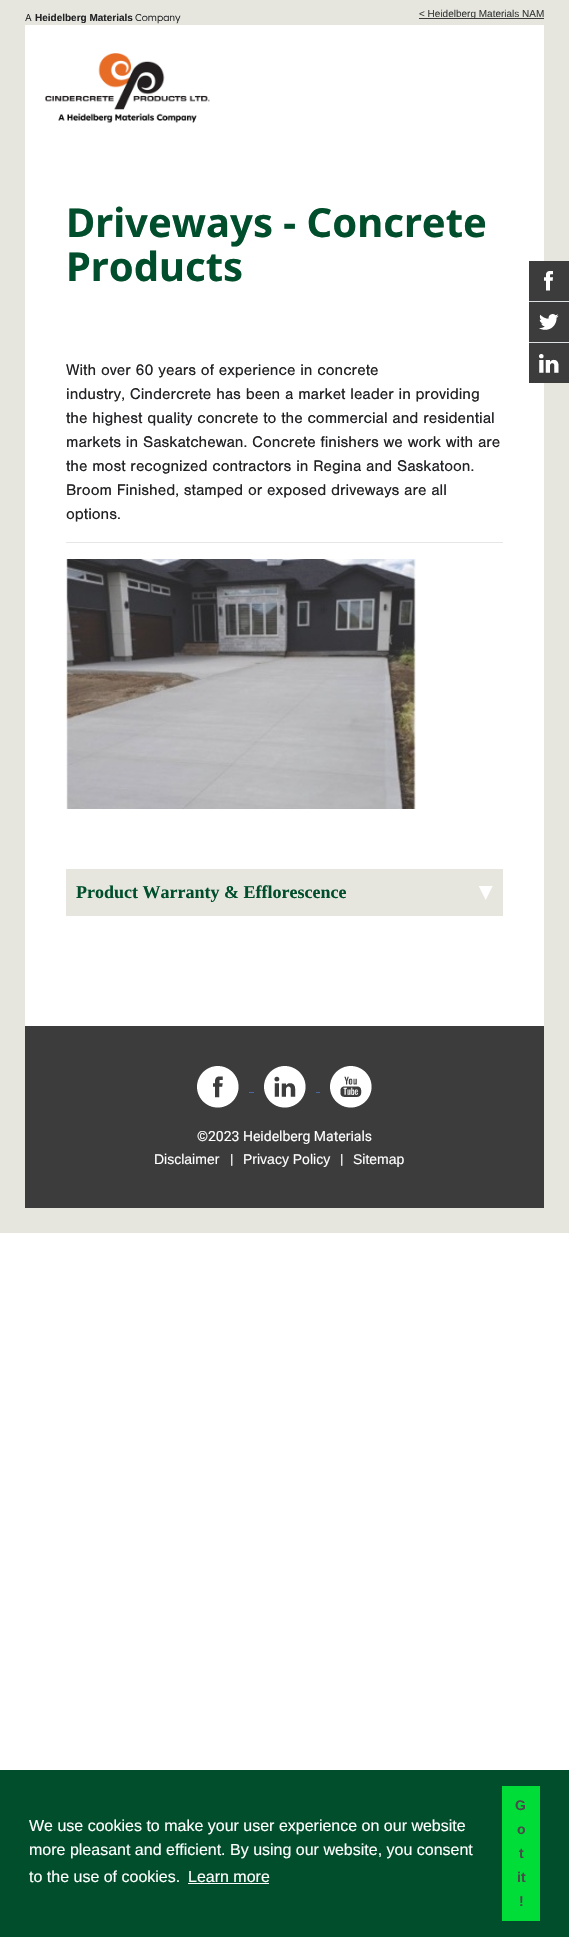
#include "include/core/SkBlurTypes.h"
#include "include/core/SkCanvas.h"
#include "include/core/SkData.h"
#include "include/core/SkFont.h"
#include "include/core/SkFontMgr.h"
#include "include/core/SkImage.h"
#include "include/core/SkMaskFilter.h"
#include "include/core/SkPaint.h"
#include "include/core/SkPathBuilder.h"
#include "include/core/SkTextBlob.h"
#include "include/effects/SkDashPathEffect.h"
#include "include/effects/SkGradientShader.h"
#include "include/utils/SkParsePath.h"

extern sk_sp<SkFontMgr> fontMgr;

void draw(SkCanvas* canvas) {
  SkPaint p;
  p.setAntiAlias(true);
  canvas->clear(SK_ColorWHITE);
  p.setColor(SkColorSetRGB(230, 230, 223));
  canvas->drawRect(SkRect::MakeLTRB(0, 0, 569, 1233), p);
  p.setColor(SkColorSetRGB(59, 59, 59));
  canvas->drawRect(SkRect::MakeLTRB(419, 18, 544, 19), p);
  p.setColor(SK_ColorWHITE);
  canvas->drawRect(SkRect::MakeLTRB(25, 25, 544, 1026), p);
  canvas->drawImageRect(SkImages::DeferredFromEncodedData(SkData::MakeFromFileName("images/1.png")), SkRect::MakeLTRB(45, 53, 210, 123), SkSamplingOptions());
  p.setColor(SkColorSetRGB(230, 230, 230));
  canvas->drawRect(SkRect::MakeLTRB(66, 542, 503, 543), p);
  canvas->drawImageRect(SkImages::DeferredFromEncodedData(SkData::MakeFromFileName("images/2.png")), SkRect::MakeLTRB(66, 559, 416, 809), SkSamplingOptions());
  p.setColor(SkColorSetRGB(230, 230, 223));
  canvas->drawRect(SkRect::MakeLTRB(66, 869, 503, 916), p);
  p.setColor(SkColorSetRGB(0, 78, 43));
  canvas->drawRect(SkRect::MakeLTRB(0, 1770, 569, 1937), p);
  p.setColor(SK_ColorWHITE);
  canvas->drawRect(SkRect::MakeLTRB(188, 1883, 269, 1884), p);
  p.setColor(SkColorSetRGB(0, 221, 57));
  canvas->drawRect(SkRect::MakeLTRB(502, 1786, 540, 1921), p);
  p.setColor(SkColorSetRGB(60, 60, 60));
  canvas->drawRect(SkRect::MakeLTRB(529, 261, 569, 301), p);
  p.setColor(SkColorSetRGB(220, 225, 227));
  canvas->drawRect(SkRect::MakeLTRB(529, 301, 569, 302), p);
  canvas->drawImageRect(SkImages::DeferredFromEncodedData(SkData::MakeFromFileName("images/3.png")), SkRect::MakeLTRB(544, 271, 553, 291), SkSamplingOptions());
  p.setColor(SkColorSetRGB(60, 60, 60));
  canvas->drawRect(SkRect::MakeLTRB(529, 302, 569, 342), p);
  p.setColor(SkColorSetRGB(220, 225, 227));
  canvas->drawRect(SkRect::MakeLTRB(529, 342, 569, 343), p);
  canvas->drawImageRect(SkImages::DeferredFromEncodedData(SkData::MakeFromFileName("images/4.png")), SkRect::MakeLTRB(539, 314, 559, 330), SkSamplingOptions());
  p.setColor(SkColorSetRGB(60, 60, 60));
  canvas->drawRect(SkRect::MakeLTRB(529, 343, 569, 383), p);
  canvas->drawImageRect(SkImages::DeferredFromEncodedData(SkData::MakeFromFileName("images/5.png")), SkRect::MakeLTRB(539, 354, 559, 373), SkSamplingOptions());
  canvas->drawRect(SkRect::MakeLTRB(25, 1026, 544, 1208), p);
  canvas->drawImageRect(SkImages::DeferredFromEncodedData(SkData::MakeFromFileName("images/6.png")), SkRect::MakeLTRB(197, 1066, 239, 1108), SkSamplingOptions());
  p.setColor(SkColorSetRGB(76, 102, 159));
  canvas->drawRect(SkRect::MakeLTRB(249, 1092, 254, 1093), p);
  canvas->drawImageRect(SkImages::DeferredFromEncodedData(SkData::MakeFromFileName("images/7.png")), SkRect::MakeLTRB(264, 1066, 306, 1108), SkSamplingOptions());
  canvas->drawRect(SkRect::MakeLTRB(316, 1092, 320, 1093), p);
  canvas->drawImageRect(SkImages::DeferredFromEncodedData(SkData::MakeFromFileName("images/8.png")), SkRect::MakeLTRB(330, 1066, 372, 1108), SkSamplingOptions());
  SkFont font1(fontMgr->matchFamilyStyle("Lexend", SkFontStyle(300, SkFontStyle::kNormal_Width, SkFontStyle::kUpright_Slant)), 10);
  font1.setSubpixel(true);
  p.setColor(SkColorSetRGB(35, 35, 38));
  canvas->drawString("A", 25, 21, font1, p);
  SkFont font2(fontMgr->matchFamilyStyle("Liberation Sans", SkFontStyle::Bold()), 10);
  font2.setSubpixel(true);
  canvas->drawString("Heidelberg Materials", 35, 21, font2, p);
  canvas->drawString("Company", 135, 21, font1, p);
  SkFont font3(fontMgr->matchFamilyStyle("Liberation Sans", SkFontStyle::Normal()), 10);
  font3.setSubpixel(true);
  p.setColor(SkColorSetRGB(59, 59, 59));
  canvas->drawString("< Heidelberg Materials NAM", 419, 17, font3, p);
  SkFont font4(fontMgr->matchFamilyStyle("Noto Sans", SkFontStyle::Bold()), 40);
  font4.setSubpixel(true);
  p.setColor(SkColorSetRGB(0, 78, 43));
  canvas->drawString("Driveways - Concrete", 66, 237, font4, p);
  canvas->drawString("Products", 66, 281, font4, p);
  SkFont font5(fontMgr->matchFamilyStyle("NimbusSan", SkFontStyle::Normal()), 16);
  font5.setSubpixel(true);
  p.setColor(SkColorSetRGB(35, 35, 38));
  canvas->drawString("With over 60 years of experience in concrete", 66, 375, font5, p);
  canvas->drawString("industry, Cindercrete has been a market leader in providing", 66, 399, font5, p);
  canvas->drawString("the highest quality concrete to the commercial and residential", 66, 423, font5, p);
  canvas->drawString("markets in Saskatchewan. Concrete finishers we work with are", 66, 447, font5, p);
  canvas->drawString("the most recognized contractors in Regina and Saskatoon.", 66, 471, font5, p);
  canvas->drawString("Broom Finished, stamped or exposed driveways are all", 66, 495, font5, p);
  canvas->drawString("options.", 66, 519, font5, p);
  SkFont font6(fontMgr->matchFamilyStyle("Liberation Serif", SkFontStyle::Bold()), 18);
  font6.setSubpixel(true);
  p.setColor(SkColorSetRGB(0, 78, 43));
  canvas->drawString("Product Warranty & Efflorescence", 76, 898, font6, p);
  SkFont font7(fontMgr->matchFamilyStyle("DejaVu Sans", SkFontStyle::Normal()), 18);
  font7.setSubpixel(true);
  p.setColor(SK_ColorWHITE);
  canvas->save();
  canvas->rotate(90, 481, 886);
  canvas->drawString("▶", 481, 886, font7, p);
  canvas->restore();
  SkFont font8(fontMgr->matchFamilyStyle("Liberation Sans", SkFontStyle::Normal()), 16);
  font8.setSubpixel(true);
  canvas->drawString("We use cookies to make your user experience on our website", 29, 1831, font8, p);
  canvas->drawString("more pleasant and efficient. By using our website, you consent", 29, 1855, font8, p);
  canvas->drawString("to the use of cookies.", 29, 1882, font8, p);
  canvas->drawString("Learn more", 188, 1882, font8, p);
  SkFont font9(fontMgr->matchFamilyStyle("Liberation Sans", SkFontStyle::Bold()), 14);
  font9.setSubpixel(true);
  p.setColor(SkColorSetRGB(74, 74, 74));
  canvas->drawString("G", 515, 1810, font9, p);
  canvas->drawString("o", 517, 1834, font9, p);
  canvas->drawString("t", 519, 1858, font9, p);
  canvas->drawString("it", 517, 1882, font9, p);
  canvas->drawString("!", 519, 1906, font9, p);
  SkFont font10(fontMgr->matchFamilyStyle("Roboto", SkFontStyle::Normal()), 14);
  font10.setSubpixel(true);
  p.setColor(SK_ColorWHITE);
  canvas->drawString("©2023 Heidelberg Materials", 197, 1141, font10, p);
  SkFont font11(fontMgr->matchFamilyStyle("Liberation Sans", SkFontStyle::Normal()), 14);
  font11.setSubpixel(true);
  canvas->drawString("Disclaimer", 154, 1164, font11, p);
  canvas->drawString("|", 230, 1164, font10, p);
  canvas->drawString("Privacy Policy", 243, 1164, font11, p);
  canvas->drawString("|", 340, 1164, font10, p);
  canvas->drawString("Sitemap", 353, 1164, font11, p);
}
